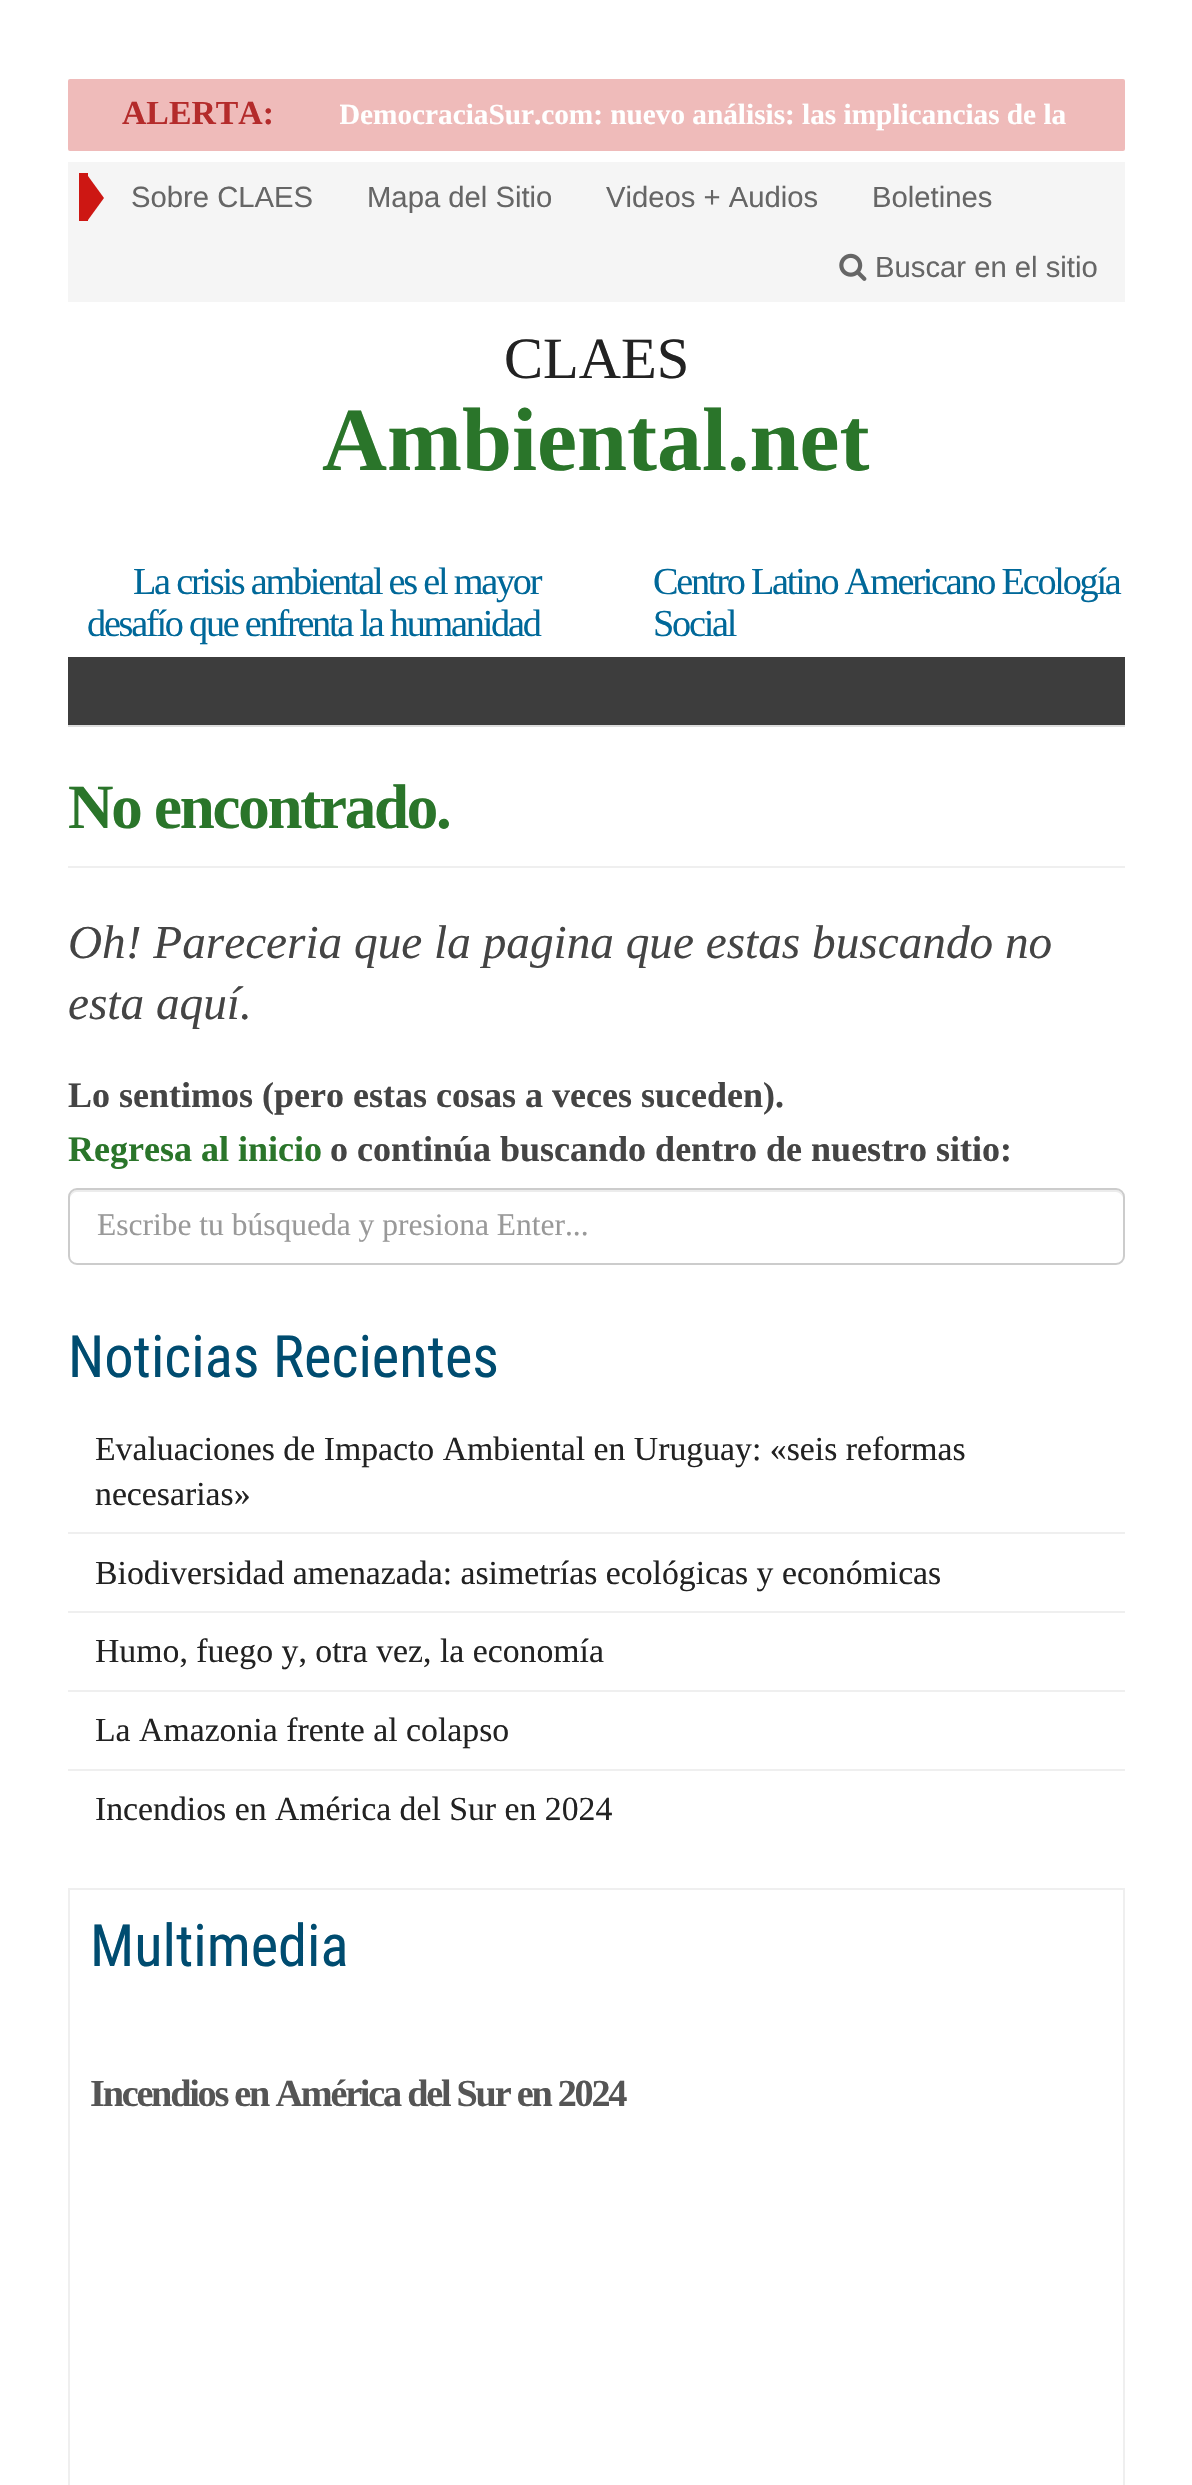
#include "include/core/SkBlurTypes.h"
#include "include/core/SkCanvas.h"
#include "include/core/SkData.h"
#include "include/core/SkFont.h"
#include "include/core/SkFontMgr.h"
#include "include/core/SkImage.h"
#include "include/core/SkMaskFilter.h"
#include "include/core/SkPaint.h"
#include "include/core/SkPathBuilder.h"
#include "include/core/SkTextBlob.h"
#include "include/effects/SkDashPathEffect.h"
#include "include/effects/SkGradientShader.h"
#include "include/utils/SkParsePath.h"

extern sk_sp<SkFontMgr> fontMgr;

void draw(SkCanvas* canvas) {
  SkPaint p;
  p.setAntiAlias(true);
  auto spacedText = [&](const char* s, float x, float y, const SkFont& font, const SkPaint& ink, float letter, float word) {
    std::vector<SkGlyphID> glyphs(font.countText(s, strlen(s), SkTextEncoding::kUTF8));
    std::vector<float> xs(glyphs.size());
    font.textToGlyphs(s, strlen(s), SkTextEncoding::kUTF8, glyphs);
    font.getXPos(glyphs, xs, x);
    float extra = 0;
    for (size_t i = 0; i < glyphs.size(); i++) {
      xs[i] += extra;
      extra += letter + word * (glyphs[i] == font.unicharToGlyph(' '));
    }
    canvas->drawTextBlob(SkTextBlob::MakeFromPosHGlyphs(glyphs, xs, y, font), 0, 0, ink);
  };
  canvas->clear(SK_ColorWHITE);
  p.setColor(SkColorSetRGB(239, 187, 186));
  canvas->drawRoundRect(SkRect::MakeLTRB(68, 79, 1125, 151), 2, 2, p);
  p.setColor(SkColorSetRGB(245, 245, 245));
  canvas->drawRect(SkRect::MakeLTRB(68, 162, 1125, 302), p);
  p.setColor(SkColorSetRGB(205, 23, 19));
  canvas->drawRect(SkRect::MakeLTRB(79, 173, 88, 221), p);
  canvas->drawPath(SkPathBuilder().moveTo(88, 220).lineTo(88, 176).lineTo(104, 198).close().detach(), p);
  canvas->drawImageRect(SkImages::DeferredFromEncodedData(SkData::MakeFromFileName("images/1.png")), SkRect::MakeLTRB(839, 253, 867, 281), SkSamplingOptions());
  p.setColor(SkColorSetRGB(221, 221, 221));
  canvas->drawRect(SkRect::MakeLTRB(68, 725, 1125, 727), p);
  p.setColor(SkColorSetRGB(61, 61, 61));
  canvas->drawRect(SkRect::MakeLTRB(68, 657, 1125, 725), p);
  p.setColor(SkColorSetRGB(239, 239, 239));
  canvas->drawRect(SkRect::MakeLTRB(68, 866, 1125, 868), p);
  p.setColor(SkColorSetRGB(236, 236, 236));
  canvas->drawPath(SkPathBuilder().moveTo(76, 1192).lineTo(1116, 1192).cubicTo(1120, 1192, 1123, 1196, 1123, 1199).cubicTo(1123, 1195, 1121, 1190, 1116, 1190).lineTo(77, 1190).cubicTo(72, 1190, 70, 1195, 70, 1199).cubicTo(70, 1196, 73, 1192, 76, 1192).close().detach(), p);
  p.setStyle(SkPaint::kStroke_Style);
  p.setStrokeWidth(2);
  p.setColor(SkColorSetRGB(204, 204, 204));
  canvas->drawRoundRect(SkRect::MakeLTRB(69, 1189, 1124, 1264), 8, 8, p);
  p.setStyle(SkPaint::kFill_Style);
  p.setColor(SkColorSetRGB(239, 239, 239));
  canvas->drawRect(SkRect::MakeLTRB(68, 1532, 1125, 1534), p);
  canvas->drawRect(SkRect::MakeLTRB(68, 1611, 1125, 1613), p);
  canvas->drawRect(SkRect::MakeLTRB(68, 1690, 1125, 1692), p);
  canvas->drawRect(SkRect::MakeLTRB(68, 1769, 1125, 1771), p);
  p.setStyle(SkPaint::kStroke_Style);
  canvas->drawRect(SkRect::MakeLTRB(69, 1889, 1124, 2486), p);
  SkFont font1(fontMgr->matchFamilyStyle("Liberation Serif", SkFontStyle::Bold()), 33.75f);
  font1.setSubpixel(true);
  p.setStyle(SkPaint::kFill_Style);
  p.setColor(SkColorSetRGB(180, 43, 43));
  canvas->drawString("ALERTA:", 122, 124, font1, p);
  canvas->save();
  canvas->clipRect(SkRect::MakeLTRB(340, 79, 1091, 223));
  SkFont font2(fontMgr->matchFamilyStyle("Liberation Serif", SkFontStyle::Bold()), 29.25f);
  font2.setSubpixel(true);
  p.setColor(SK_ColorWHITE);
  canvas->drawString("DemocraciaSur.com: nuevo análisis: las implicancias de la", 339, 124, font2, p);
  canvas->restore();
  SkFont font3(fontMgr->matchFamilyStyle("Liberation Sans", SkFontStyle::Normal()), 29.25f);
  font3.setSubpixel(true);
  p.setColor(SkColorSetRGB(102, 102, 102));
  canvas->drawString("Sobre CLAES", 131, 207, font3, p);
  canvas->drawString("Mapa del Sitio", 367, 207, font3, p);
  canvas->drawString("Videos + Audios", 606, 207, font3, p);
  canvas->drawString("Boletines", 872, 207, font3, p);
  canvas->drawString("Buscar en el sitio", 875, 277, font3, p);
  SkFont font4(fontMgr->matchFamilyStyle("Liberation Serif", SkFontStyle::Normal()), 58.5f);
  font4.setSubpixel(true);
  p.setColor(SkColorSetRGB(34, 34, 34));
  canvas->drawString("CLAES", 504, 378, font4, p);
  SkFont font5(fontMgr->matchFamilyStyle("Liberation Serif", SkFontStyle::Bold()), 90);
  font5.setSubpixel(true);
  p.setColor(SkColorSetRGB(42, 117, 42));
  canvas->drawString("Ambiental.net", 322, 470, font5, p);
  SkFont font6(fontMgr->matchFamilyStyle("Liberation Serif", SkFontStyle::Normal()), 38.25f);
  font6.setSubpixel(true);
  p.setColor(SkColorSetRGB(0, 104, 153));
  spacedText("La crisis ambiental es el mayor", 133, 594, font6, p, -2.25f, 0);
  spacedText("desafío que enfrenta la humanidad", 87, 636, font6, p, -2.25f, 0);
  spacedText("Centro Latino Americano Ecología", 653, 594, font6, p, -2.25f, 0);
  spacedText("Social", 653, 636, font6, p, -2.25f, 0);
  SkFont font7(fontMgr->matchFamilyStyle("Liberation Serif", SkFontStyle::Bold()), 63);
  font7.setSubpixel(true);
  p.setColor(SkColorSetRGB(42, 117, 42));
  spacedText("No encontrado.", 68, 828, font7, p, -2.25f, 0);
  SkFont font8(fontMgr->matchFamilyStyle("Liberation Serif", SkFontStyle::Italic()), 47.25f);
  font8.setSubpixel(true);
  p.setColor(SkColorSetRGB(68, 68, 68));
  canvas->drawString("Oh! Pareceria que la pagina que estas buscando no", 68, 958, font8, p);
  canvas->drawString("esta aquí.", 68, 1019, font8, p);
  SkFont font9(fontMgr->matchFamilyStyle("Liberation Serif", SkFontStyle::Bold()), 36);
  font9.setSubpixel(true);
  canvas->drawString("Lo sentimos (pero estas cosas a veces suceden).", 68, 1107, font9, p);
  p.setColor(SkColorSetRGB(42, 117, 42));
  canvas->drawString("Regresa al inicio", 68, 1161, font9, p);
  p.setColor(SkColorSetRGB(68, 68, 68));
  canvas->drawString("o continúa buscando dentro de nuestro sitio:", 330, 1161, font9, p);
  SkFont font10(fontMgr->matchFamilyStyle("Liberation Serif", SkFontStyle::Normal()), 31.5f);
  font10.setSubpixel(true);
  p.setColor(SkColorSetRGB(153, 153, 153));
  canvas->drawString("Escribe tu búsqueda y presiona Enter...", 97, 1235, font10, p);
  SkFont font11(fontMgr->matchFamilyStyle("Roboto Condensed", SkFontStyle::Normal()), 58.5f);
  font11.setSubpixel(true);
  p.setColor(SkColorSetRGB(0, 76, 112));
  canvas->drawString("Noticias Recientes", 68, 1377, font11, p);
  SkFont font12(fontMgr->matchFamilyStyle("Liberation Serif", SkFontStyle::Normal()), 33.75f);
  font12.setSubpixel(true);
  p.setColor(SkColorSetRGB(34, 34, 34));
  canvas->drawString("Evaluaciones de Impacto Ambiental en Uruguay: «seis reformas", 95, 1460, font12, p);
  canvas->drawString("necesarias»", 95, 1505, font12, p);
  canvas->drawString("Biodiversidad amenazada: asimetrías ecológicas y económicas", 95, 1584, font12, p);
  canvas->drawString("Humo, fuego y, otra vez, la economía", 95, 1662, font12, p);
  canvas->drawString("La Amazonia frente al colapso", 95, 1741, font12, p);
  canvas->drawString("Incendios en América del Sur en 2024", 95, 1820, font12, p);
  p.setColor(SkColorSetRGB(0, 76, 112));
  canvas->drawString("Multimedia", 90, 1966, font11, p);
  SkFont font13(fontMgr->matchFamilyStyle("Liberation Serif", SkFontStyle::Bold()), 38.25f);
  font13.setSubpixel(true);
  p.setColor(SkColorSetRGB(85, 85, 85));
  spacedText("Incendios en América del Sur en 2024", 90, 2106, font13, p, -2.25f, 0);
}
